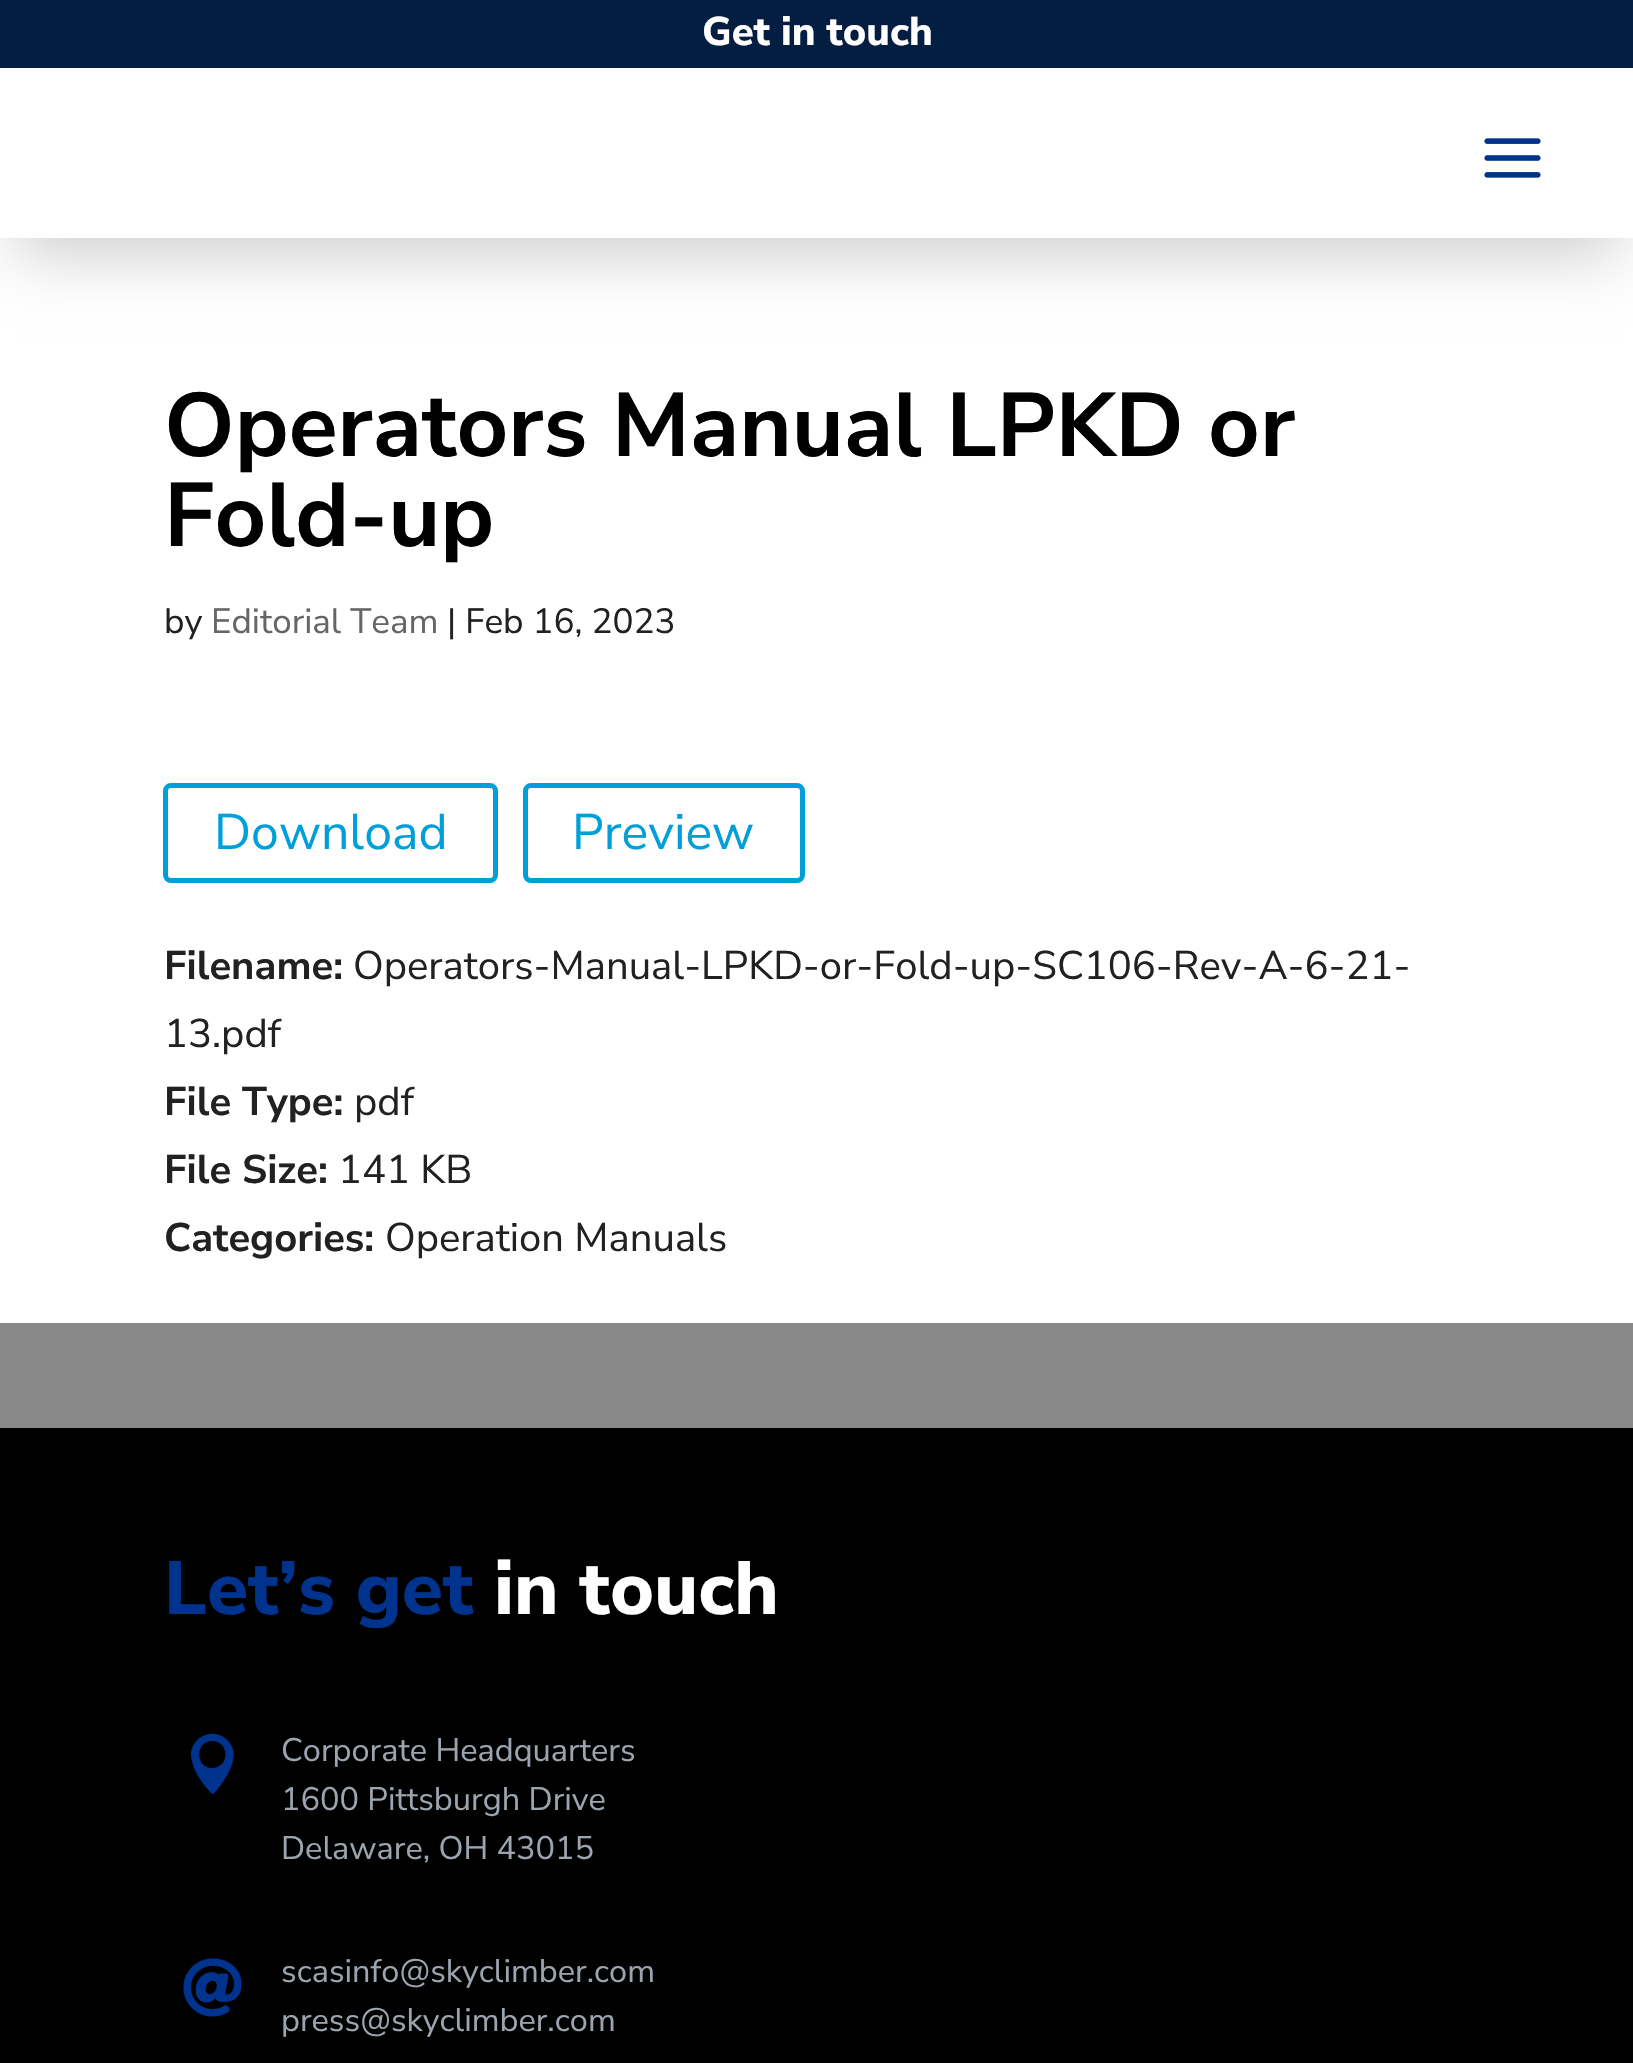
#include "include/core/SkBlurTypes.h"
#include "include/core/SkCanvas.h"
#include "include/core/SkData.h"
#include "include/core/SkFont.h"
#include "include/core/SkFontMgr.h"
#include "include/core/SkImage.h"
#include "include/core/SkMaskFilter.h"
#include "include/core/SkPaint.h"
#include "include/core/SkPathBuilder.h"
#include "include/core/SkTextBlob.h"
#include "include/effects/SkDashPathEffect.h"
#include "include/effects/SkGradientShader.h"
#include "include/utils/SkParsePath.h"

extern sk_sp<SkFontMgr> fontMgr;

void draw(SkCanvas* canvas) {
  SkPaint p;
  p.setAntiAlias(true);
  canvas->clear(SkColorSetRGB(137, 137, 137));
  p.setColor(SK_ColorWHITE);
  canvas->drawRect(SkRect::MakeLTRB(0, 238, 1633, 1323), p);
  p.setColor(SkColorSetARGB(51, 0, 0, 0));
  p.setMaskFilter(SkMaskFilter::MakeBlur(kNormal_SkBlurStyle, 31));
  canvas->drawRect(SkRect::MakeLTRB(15, 45, 1620, 253), p);
  p.setMaskFilter(nullptr);
  p.setColor(SK_ColorWHITE);
  canvas->drawRect(SkRect::MakeLTRB(0, 68, 1633, 238), p);
  p.setColor(SkColorSetRGB(4, 30, 66));
  canvas->drawRect(SkRect::MakeLTRB(0, 0, 1633, 68), p);
  canvas->drawImageRect(SkImages::DeferredFromEncodedData(SkData::MakeFromFileName("images/1.png")), SkRect::MakeLTRB(1484, 138, 1541, 178), SkSamplingOptions());
  p.setStyle(SkPaint::kStroke_Style);
  p.setStrokeWidth(5);
  p.setColor(SkColorSetRGB(0, 159, 218));
  canvas->drawRoundRect(SkRect::MakeLTRB(165.5f, 785.5f, 495.5f, 880.5f), 5.5f, 5.5f, p);
  canvas->drawRoundRect(SkRect::MakeLTRB(525.5f, 785.5f, 802.5f, 880.5f), 5.5f, 5.5f, p);
  p.setStyle(SkPaint::kFill_Style);
  p.setColor(SK_ColorBLACK);
  canvas->drawRect(SkRect::MakeLTRB(0, 1428, 1633, 2063), p);
  p.setColor(SkColorSetRGB(0, 51, 141));
  canvas->drawPath(SkPathBuilder().moveTo(211, 1793).lineTo(213, 1794).cubicTo(215, 1793, 219, 1787, 220, 1786).cubicTo(229, 1774, 241, 1754, 228, 1741).cubicTo(215, 1726, 191, 1736, 191, 1755).cubicTo(192, 1770, 202, 1783, 211, 1793).close().moveTo(212, 1741).cubicTo(230, 1741, 230, 1768, 212, 1768).cubicTo(195, 1768, 195, 1741, 212, 1741).close().detach(), p);
  canvas->drawImageRect(SkImages::DeferredFromEncodedData(SkData::MakeFromFileName("images/2.png")), SkRect::MakeLTRB(183, 1958, 242, 2017), SkSamplingOptions());
  SkFont font1(fontMgr->matchFamilyStyle("Nunito Sans", SkFontStyle(800, SkFontStyle::kNormal_Width, SkFontStyle::kUpright_Slant)), 40);
  font1.setSubpixel(true);
  p.setColor(SK_ColorWHITE);
  canvas->drawString("Get in touch", 702, 45, font1, p);
  SkFont font2(fontMgr->matchFamilyStyle("Nunito Sans", SkFontStyle::Bold()), 90);
  font2.setSubpixel(true);
  p.setColor(SK_ColorBLACK);
  canvas->drawString("Operators Manual LPKD or", 164, 456, font2, p);
  canvas->drawString("Fold-up", 164, 546, font2, p);
  SkFont font3(fontMgr->matchFamilyStyle("Nunito Sans", SkFontStyle::Normal()), 35);
  font3.setSubpixel(true);
  p.setColor(SkColorSetRGB(33, 33, 33));
  canvas->drawString("by", 164, 633, font3, p);
  p.setColor(SkColorSetRGB(102, 102, 102));
  canvas->drawString("Editorial Team", 211, 633, font3, p);
  p.setColor(SkColorSetRGB(33, 33, 33));
  canvas->drawString("| Feb 16, 2023", 447, 633, font3, p);
  SkFont font4(fontMgr->matchFamilyStyle("Nunito Sans", SkFontStyle::Normal()), 50);
  font4.setSubpixel(true);
  p.setColor(SkColorSetRGB(0, 159, 218));
  canvas->drawString("Download", 214, 849, font4, p);
  canvas->drawString("Preview", 572, 849, font4, p);
  SkFont font5(fontMgr->matchFamilyStyle("Nunito Sans", SkFontStyle::Bold()), 40);
  font5.setSubpixel(true);
  p.setColor(SkColorSetRGB(33, 33, 33));
  canvas->drawString("Filename:", 164, 979, font5, p);
  SkFont font6(fontMgr->matchFamilyStyle("Nunito Sans", SkFontStyle::Normal()), 40);
  font6.setSubpixel(true);
  canvas->drawString("Operators-Manual-LPKD-or-Fold-up-SC106-Rev-A-6-21-", 353, 979, font6, p);
  canvas->drawString("13.pdf", 164, 1047, font6, p);
  canvas->drawString("File Type:", 164, 1115, font5, p);
  canvas->drawString("pdf", 354, 1115, font6, p);
  canvas->drawString("File Size:", 164, 1183, font5, p);
  canvas->drawString("141 KB", 338, 1183, font6, p);
  canvas->drawString("Categories:", 164, 1251, font5, p);
  canvas->drawString("Operation Manuals", 385, 1251, font6, p);
  SkFont font7(fontMgr->matchFamilyStyle("Nunito Sans", SkFontStyle(800, SkFontStyle::kNormal_Width, SkFontStyle::kUpright_Slant)), 75);
  font7.setSubpixel(true);
  p.setColor(SkColorSetRGB(0, 51, 141));
  canvas->drawString("Let’s get", 164, 1614, font7, p);
  p.setColor(SK_ColorWHITE);
  canvas->drawString("in touch", 494, 1614, font7, p);
  SkFont font8(fontMgr->matchFamilyStyle("Nunito Sans", SkFontStyle::Normal()), 32.5f);
  font8.setSubpixel(true);
  p.setColor(SkColorSetRGB(156, 165, 175));
  canvas->drawString("Corporate Headquarters", 281, 1761, font8, p);
  canvas->drawString("1600 Pittsburgh Drive", 281, 1810, font8, p);
  canvas->drawString("Delaware, OH 43015", 281, 1859, font8, p);
  canvas->drawString("scasinfo@skyclimber.com", 281, 1982, font8, p);
  canvas->drawString("press@skyclimber.com", 281, 2031, font8, p);
}
